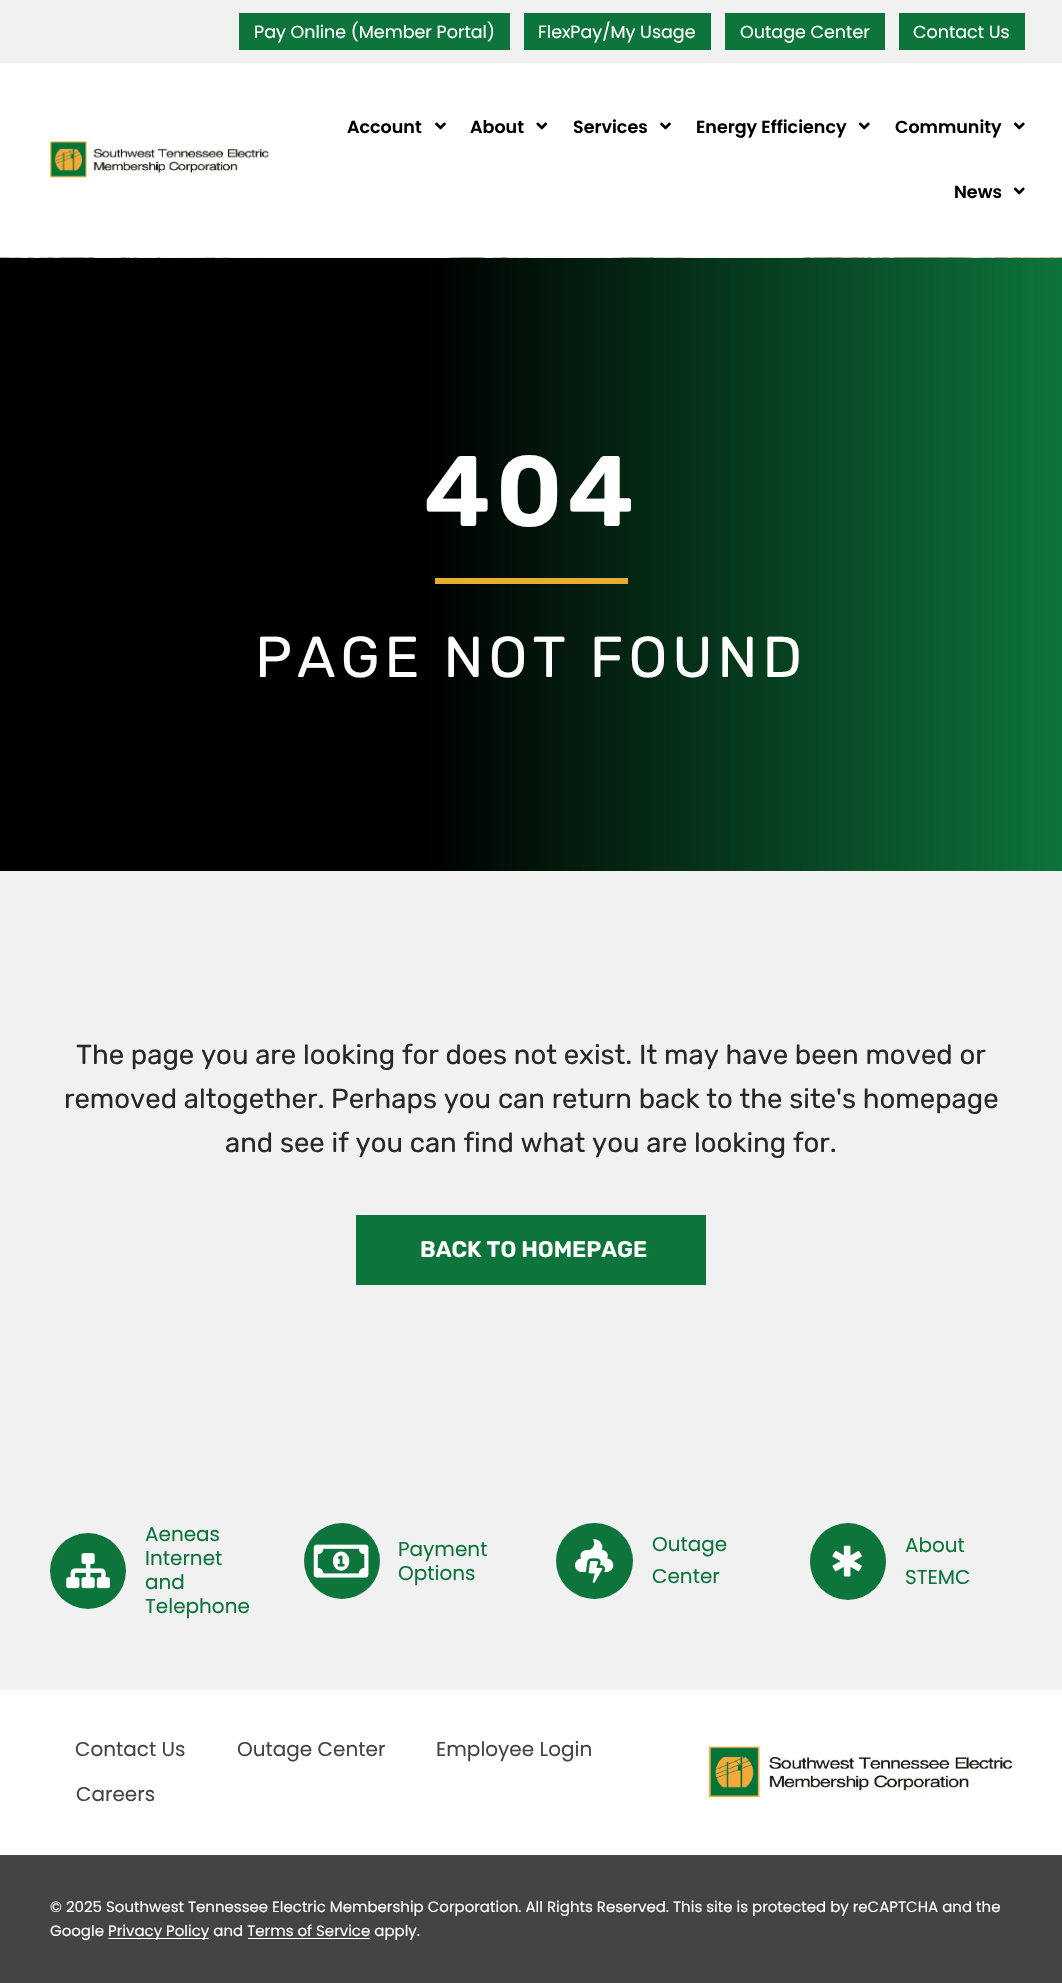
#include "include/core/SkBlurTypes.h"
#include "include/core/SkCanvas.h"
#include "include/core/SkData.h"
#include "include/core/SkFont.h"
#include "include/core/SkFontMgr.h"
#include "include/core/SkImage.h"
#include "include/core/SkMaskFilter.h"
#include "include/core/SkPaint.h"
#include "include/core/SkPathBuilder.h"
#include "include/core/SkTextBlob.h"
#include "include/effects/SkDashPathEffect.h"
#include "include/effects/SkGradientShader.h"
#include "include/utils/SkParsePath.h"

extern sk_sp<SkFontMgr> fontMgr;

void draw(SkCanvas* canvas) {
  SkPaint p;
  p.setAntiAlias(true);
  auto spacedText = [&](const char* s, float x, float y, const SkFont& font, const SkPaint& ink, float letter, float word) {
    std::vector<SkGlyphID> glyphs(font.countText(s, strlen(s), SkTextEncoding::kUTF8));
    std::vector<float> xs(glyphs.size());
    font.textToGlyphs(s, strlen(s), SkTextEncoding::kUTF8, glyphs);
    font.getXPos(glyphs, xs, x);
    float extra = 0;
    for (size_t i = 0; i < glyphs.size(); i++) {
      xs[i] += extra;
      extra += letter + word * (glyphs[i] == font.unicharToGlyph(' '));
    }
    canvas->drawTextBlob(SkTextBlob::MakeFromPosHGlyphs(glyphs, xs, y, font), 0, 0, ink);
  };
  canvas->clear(SK_ColorWHITE);
  p.setColor(SkColorSetRGB(241, 241, 241));
  canvas->drawRect(SkRect::MakeLTRB(0, 0, 1062, 63), p);
  p.setColor(SkColorSetRGB(13, 116, 59));
  canvas->drawRect(SkRect::MakeLTRB(239, 13, 510, 50), p);
  canvas->drawRect(SkRect::MakeLTRB(524, 13, 711, 50), p);
  canvas->drawRect(SkRect::MakeLTRB(725, 13, 885, 50), p);
  canvas->drawRect(SkRect::MakeLTRB(899, 13, 1025, 50), p);
  canvas->drawImageRect(SkImages::DeferredFromEncodedData(SkData::MakeFromFileName("images/1.png")), SkRect::MakeLTRB(50, 141, 269, 178), SkSamplingOptions());
  canvas->drawImageRect(SkImages::DeferredFromEncodedData(SkData::MakeFromFileName("images/2.png")), SkRect::MakeLTRB(435, 122, 446, 130), SkSamplingOptions());
  canvas->drawImageRect(SkImages::DeferredFromEncodedData(SkData::MakeFromFileName("images/3.png")), SkRect::MakeLTRB(536, 122, 548, 130), SkSamplingOptions());
  canvas->drawImageRect(SkImages::DeferredFromEncodedData(SkData::MakeFromFileName("images/2.png")), SkRect::MakeLTRB(660, 122, 671, 130), SkSamplingOptions());
  canvas->drawImageRect(SkImages::DeferredFromEncodedData(SkData::MakeFromFileName("images/4.png")), SkRect::MakeLTRB(858, 122, 870, 130), SkSamplingOptions());
  canvas->drawImageRect(SkImages::DeferredFromEncodedData(SkData::MakeFromFileName("images/4.png")), SkRect::MakeLTRB(1013, 122, 1025, 130), SkSamplingOptions());
  canvas->drawImageRect(SkImages::DeferredFromEncodedData(SkData::MakeFromFileName("images/4.png")), SkRect::MakeLTRB(1013, 187, 1025, 195), SkSamplingOptions());
  canvas->drawImageRect(SkImages::DeferredFromEncodedData(SkData::MakeFromFileName("images/5.png")), SkRect::MakeLTRB(0, 257, 1062, 258), SkSamplingOptions());
  {
    const SkColor colors[] = {SK_ColorBLACK, SkColorSetRGB(13, 116, 59)};
    const float stops[] = {0.4f, 1};
    const SkPoint ends[] = {{0, 564}, {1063, 564}};
    p.setShader(SkGradientShader::MakeLinear(ends, colors, stops, 2, SkTileMode::kClamp));
    p.setAlpha(255);
  }
  canvas->drawRect(SkRect::MakeLTRB(0, 258, 1062, 871), p);
  p.setShader(nullptr);
  p.setColor(SkColorSetRGB(231, 174, 53));
  canvas->drawRect(SkRect::MakeLTRB(435, 578, 628, 584), p);
  p.setColor(SkColorSetRGB(241, 241, 241));
  canvas->drawRect(SkRect::MakeLTRB(0, 871, 1062, 1690), p);
  p.setColor(SkColorSetRGB(13, 116, 59));
  canvas->drawRect(SkRect::MakeLTRB(356, 1215, 706, 1285), p);
  canvas->drawCircle(88, 1571, 38, p);
  canvas->drawImageRect(SkImages::DeferredFromEncodedData(SkData::MakeFromFileName("images/6.png")), SkRect::MakeLTRB(66, 1553, 110, 1589), SkSamplingOptions());
  canvas->drawCircle(342, 1561, 38, p);
  canvas->drawImageRect(SkImages::DeferredFromEncodedData(SkData::MakeFromFileName("images/7.png")), SkRect::MakeLTRB(313, 1544, 369, 1578), SkSamplingOptions());
  canvas->drawRoundRect(SkRect::MakeLTRB(556, 1523, 633, 1599), 38, 38, p);
  canvas->drawImageRect(SkImages::DeferredFromEncodedData(SkData::MakeFromFileName("images/8.png")), SkRect::MakeLTRB(575, 1539, 614, 1583), SkSamplingOptions());
  canvas->drawRoundRect(SkRect::MakeLTRB(810, 1523, 886, 1600), 38, 38, p);
  canvas->drawImageRect(SkImages::DeferredFromEncodedData(SkData::MakeFromFileName("images/9.png")), SkRect::MakeLTRB(832, 1545, 862, 1577), SkSamplingOptions());
  canvas->drawImageRect(SkImages::DeferredFromEncodedData(SkData::MakeFromFileName("images/10.png")), SkRect::MakeLTRB(708, 1746, 1013, 1798), SkSamplingOptions());
  p.setColor(SkColorSetRGB(68, 68, 68));
  canvas->drawRect(SkRect::MakeLTRB(0, 1855, 1062, 1983), p);
  p.setColor(SK_ColorWHITE);
  canvas->drawRect(SkRect::MakeLTRB(108, 1938, 209, 1939), p);
  canvas->drawRect(SkRect::MakeLTRB(248, 1938, 370, 1939), p);
  SkFont font1(fontMgr->matchFamilyStyle("Poppins", SkFontStyle::Normal()), 17.5f);
  font1.setSubpixel(true);
  canvas->drawString("Pay Online (Member Portal)", 254, 38, font1, p);
  canvas->drawString("FlexPay/My Usage", 538, 38, font1, p);
  canvas->drawString("Outage Center", 740, 38, font1, p);
  canvas->drawString("Contact Us", 913, 38, font1, p);
  SkFont font2(fontMgr->matchFamilyStyle("Poppins", SkFontStyle(600, SkFontStyle::kNormal_Width, SkFontStyle::kUpright_Slant)), 17.5f);
  font2.setSubpixel(true);
  p.setColor(SK_ColorBLACK);
  canvas->drawString("Account", 347, 133, font2, p);
  canvas->drawString("About", 470, 133, font2, p);
  canvas->drawString("Services", 573, 133, font2, p);
  canvas->drawString("Energy Efficiency", 696, 133, font2, p);
  canvas->drawString("Community", 895, 133, font2, p);
  canvas->drawString("News", 954, 198, font2, p);
  SkFont font3(fontMgr->matchFamilyStyle("Rubik", SkFontStyle(600, SkFontStyle::kNormal_Width, SkFontStyle::kUpright_Slant)), 100);
  font3.setSubpixel(true);
  p.setColor(SK_ColorWHITE);
  spacedText("404", 424, 526, font3, p, 5, 0);
  SkFont font4(fontMgr->matchFamilyStyle("Rubik", SkFontStyle::Normal()), 57.5f);
  font4.setSubpixel(true);
  spacedText("PAGE NOT FOUND", 255, 677, font4, p, 5, 0);
  SkFont font5(fontMgr->matchFamilyStyle("Rubik", SkFontStyle::Normal()), 27.5f);
  font5.setSubpixel(true);
  p.setColor(SkColorSetRGB(40, 40, 40));
  canvas->drawString("The page you are looking for does not exist. It may have been moved or", 76, 1064, font5, p);
  canvas->drawString("removed altogether. Perhaps you can return back to the site's homepage", 64, 1108, font5, p);
  canvas->drawString("and see if you can find what you are looking for.", 225, 1152, font5, p);
  SkFont font6(fontMgr->matchFamilyStyle("Rubik", SkFontStyle(600, SkFontStyle::kNormal_Width, SkFontStyle::kUpright_Slant)), 22.5f);
  font6.setSubpixel(true);
  p.setColor(SK_ColorWHITE);
  canvas->drawString("BACK TO HOMEPAGE", 420, 1257, font6, p);
  SkFont font7(fontMgr->matchFamilyStyle("Poppins", SkFontStyle::Normal()), 20);
  font7.setSubpixel(true);
  p.setColor(SkColorSetRGB(13, 116, 59));
  canvas->drawString("Aeneas", 145, 1541, font7, p);
  canvas->drawString("Internet", 145, 1565, font7, p);
  canvas->drawString("and", 145, 1589, font7, p);
  canvas->drawString("Telephone", 145, 1613, font7, p);
  canvas->drawString("Payment", 398, 1556, font7, p);
  canvas->drawString("Options", 398, 1580, font7, p);
  canvas->drawString("Outage", 652, 1551, font7, p);
  canvas->drawString("Center", 652, 1583, font7, p);
  canvas->drawString("About", 905, 1552, font7, p);
  canvas->drawString("STEMC", 905, 1584, font7, p);
  p.setColor(SkColorSetRGB(68, 68, 68));
  canvas->drawString("Contact Us", 75, 1756, font7, p);
  canvas->drawString("Outage Center", 237, 1756, font7, p);
  canvas->drawString("Employee Login", 436, 1756, font7, p);
  canvas->drawString("Careers", 76, 1801, font7, p);
  SkFont font8(fontMgr->matchFamilyStyle("Poppins", SkFontStyle::Normal()), 15);
  font8.setSubpixel(true);
  p.setColor(SK_ColorWHITE);
  canvas->drawString("© 2025 Southwest Tennessee Electric Membership Corporation. All Rights Reserved. This site is protected by reCAPTCHA and the", 50, 1912, font8, p);
  canvas->drawString("Google", 50, 1936, font8, p);
  canvas->drawString("Privacy Policy and Terms of Service apply.", 108, 1936, font8, p);
}
